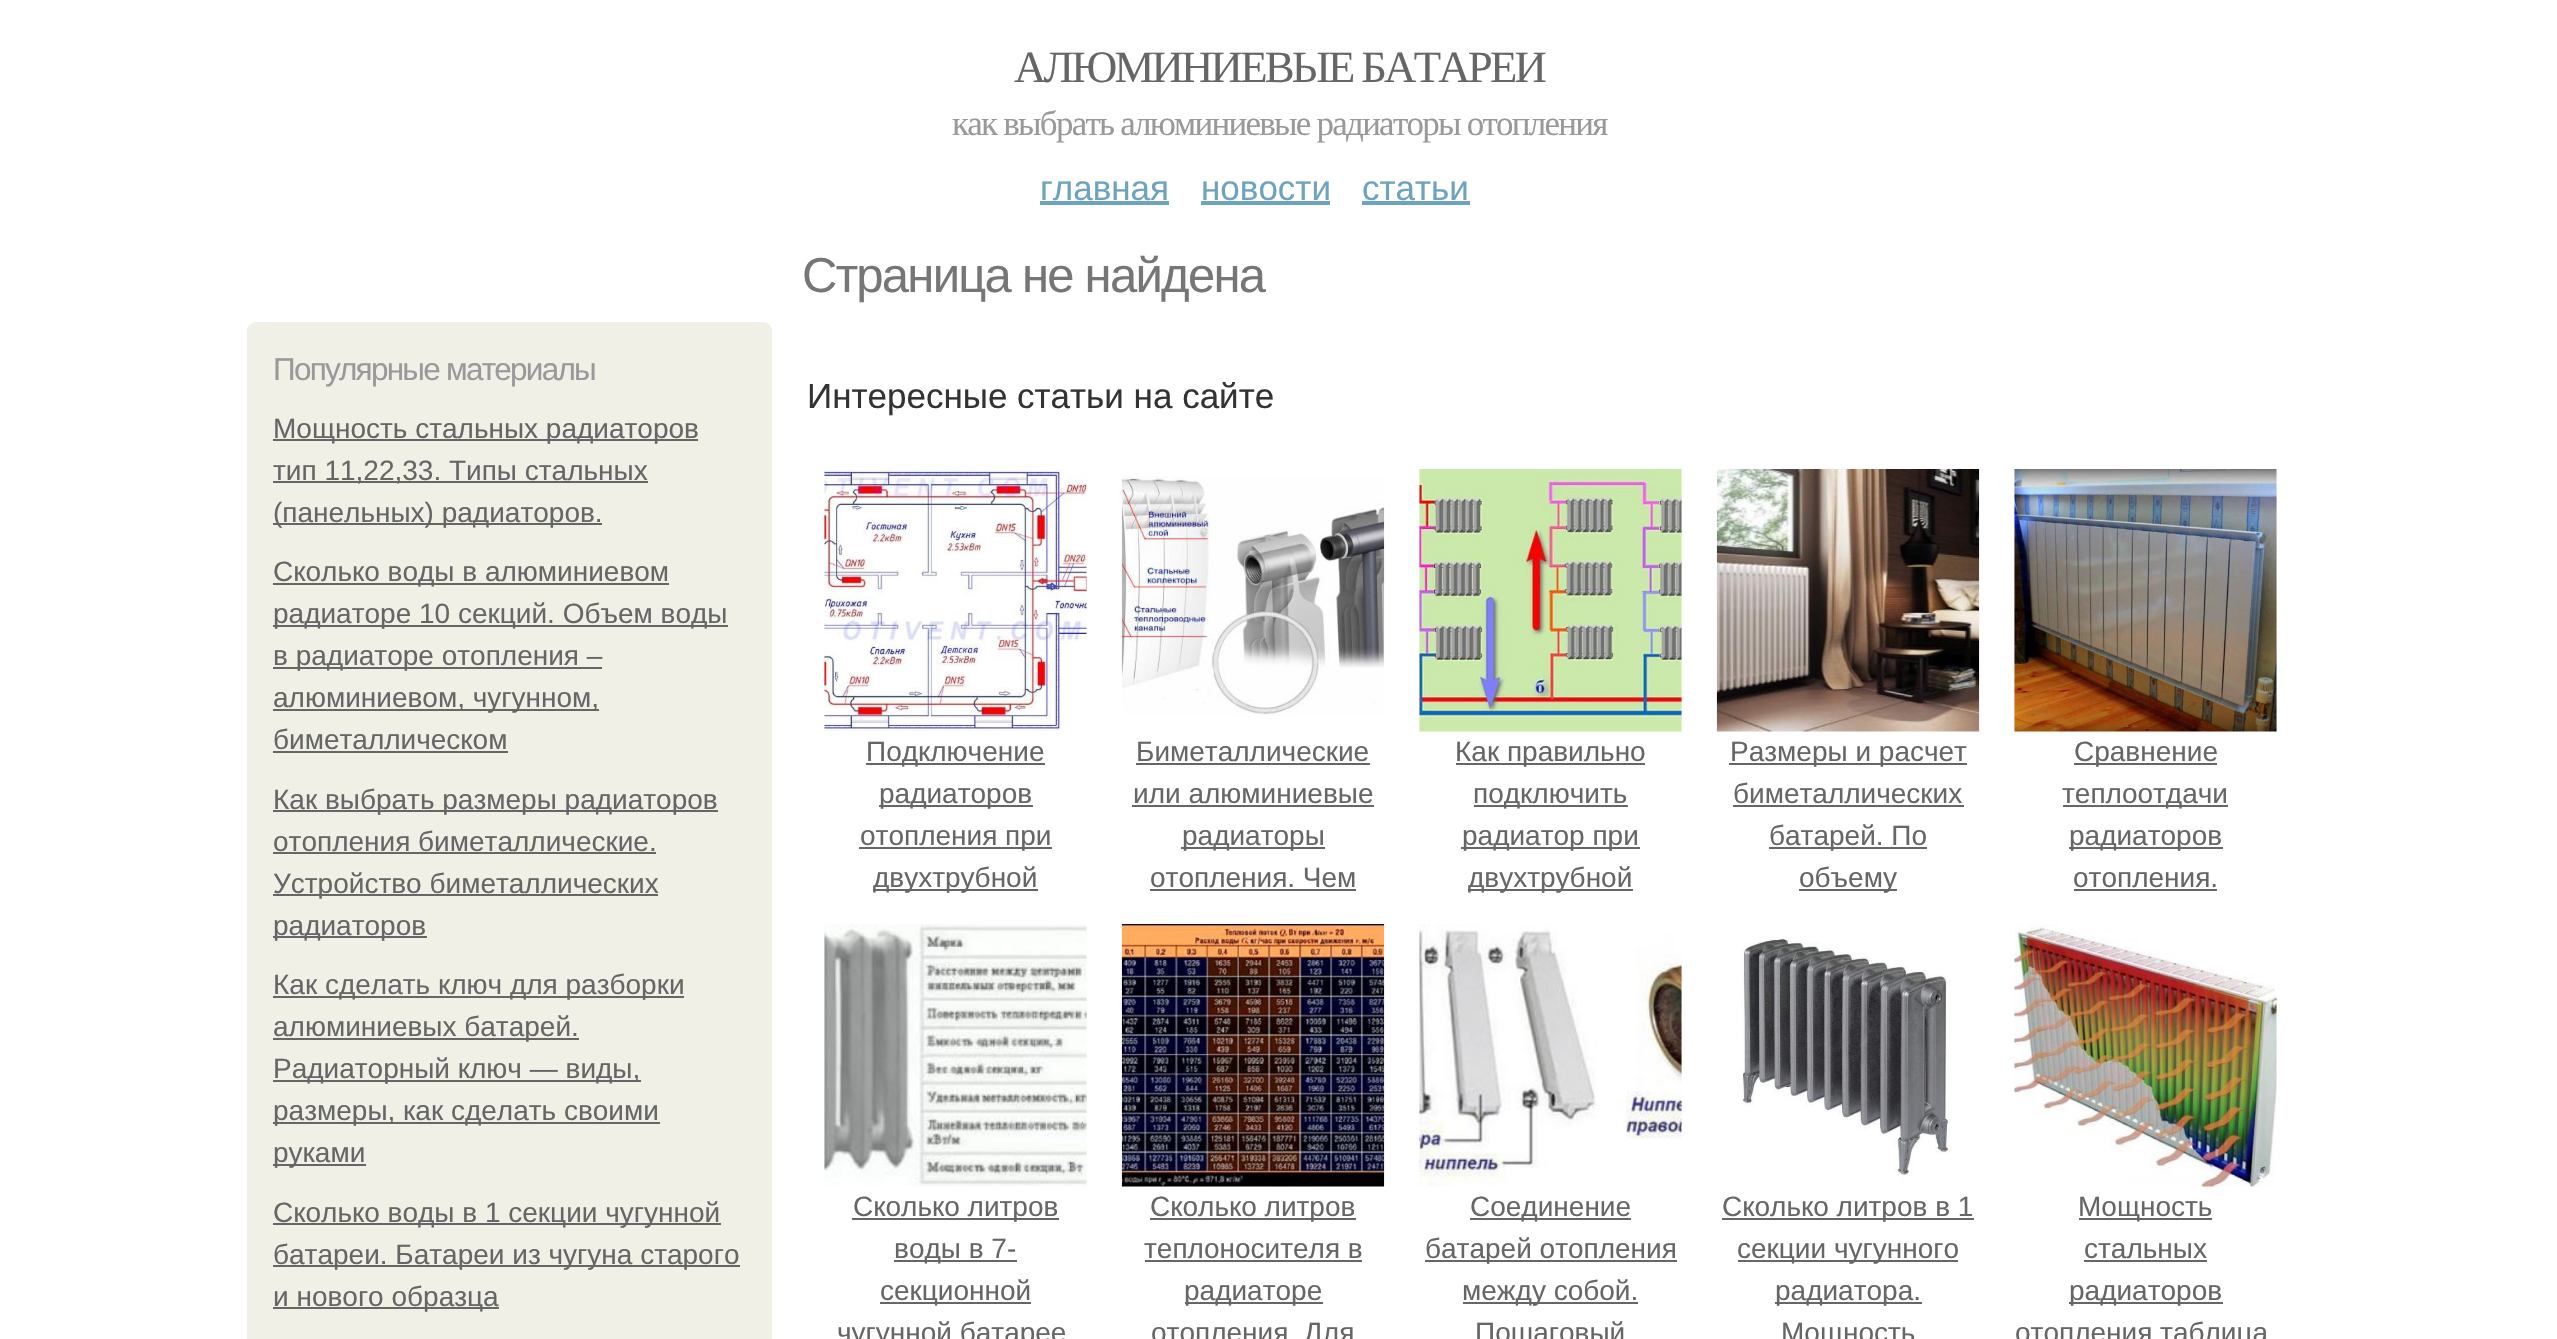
#include "include/core/SkBlurTypes.h"
#include "include/core/SkCanvas.h"
#include "include/core/SkData.h"
#include "include/core/SkFont.h"
#include "include/core/SkFontMgr.h"
#include "include/core/SkImage.h"
#include "include/core/SkMaskFilter.h"
#include "include/core/SkPaint.h"
#include "include/core/SkPathBuilder.h"
#include "include/core/SkTextBlob.h"
#include "include/effects/SkDashPathEffect.h"
#include "include/effects/SkGradientShader.h"
#include "include/utils/SkParsePath.h"

extern sk_sp<SkFontMgr> fontMgr;

void draw(SkCanvas* canvas) {
  SkPaint p;
  p.setAntiAlias(true);
  auto spacedText = [&](const char* s, float x, float y, const SkFont& font, const SkPaint& ink, float letter, float word) {
    std::vector<SkGlyphID> glyphs(font.countText(s, strlen(s), SkTextEncoding::kUTF8));
    std::vector<float> xs(glyphs.size());
    font.textToGlyphs(s, strlen(s), SkTextEncoding::kUTF8, glyphs);
    font.getXPos(glyphs, xs, x);
    float extra = 0;
    for (size_t i = 0; i < glyphs.size(); i++) {
      xs[i] += extra;
      extra += letter + word * (glyphs[i] == font.unicharToGlyph(' '));
    }
    canvas->drawTextBlob(SkTextBlob::MakeFromPosHGlyphs(glyphs, xs, y, font), 0, 0, ink);
  };
  canvas->clear(SK_ColorWHITE);
  p.setColor(SkColorSetRGB(109, 163, 189));
  canvas->drawRect(SkRect::MakeLTRB(1040, 201, 1169, 205), p);
  canvas->drawRect(SkRect::MakeLTRB(1201, 201, 1330, 205), p);
  canvas->drawRect(SkRect::MakeLTRB(1362, 201, 1470, 205), p);
  p.setColor(SkColorSetRGB(240, 240, 231));
  canvas->drawRoundRect(SkRect::MakeLTRB(247, 322, 772, 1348), 9, 9, p);
  p.setColor(SkColorSetRGB(102, 102, 102));
  canvas->drawRect(SkRect::MakeLTRB(273, 439, 698, 441), p);
  canvas->drawRect(SkRect::MakeLTRB(273, 481, 648, 483), p);
  canvas->drawRect(SkRect::MakeLTRB(273, 523, 602, 525), p);
  canvas->drawRect(SkRect::MakeLTRB(273, 583, 669, 585), p);
  canvas->drawRect(SkRect::MakeLTRB(273, 625, 728, 627), p);
  canvas->drawRect(SkRect::MakeLTRB(273, 667, 602, 669), p);
  canvas->drawRect(SkRect::MakeLTRB(273, 709, 599, 711), p);
  canvas->drawRect(SkRect::MakeLTRB(273, 751, 508, 753), p);
  canvas->drawRect(SkRect::MakeLTRB(273, 810, 718, 812), p);
  canvas->drawRect(SkRect::MakeLTRB(273, 852, 656, 854), p);
  canvas->drawRect(SkRect::MakeLTRB(273, 894, 658, 896), p);
  canvas->drawRect(SkRect::MakeLTRB(273, 936, 427, 938), p);
  canvas->drawRect(SkRect::MakeLTRB(273, 996, 684, 998), p);
  canvas->drawRect(SkRect::MakeLTRB(273, 1038, 579, 1040), p);
  canvas->drawRect(SkRect::MakeLTRB(273, 1080, 641, 1082), p);
  canvas->drawRect(SkRect::MakeLTRB(273, 1122, 660, 1124), p);
  canvas->drawRect(SkRect::MakeLTRB(273, 1164, 366, 1166), p);
  canvas->drawRect(SkRect::MakeLTRB(273, 1223, 721, 1225), p);
  canvas->drawRect(SkRect::MakeLTRB(273, 1265, 740, 1267), p);
  canvas->drawRect(SkRect::MakeLTRB(273, 1307, 499, 1309), p);
  canvas->drawImageRect(SkImages::DeferredFromEncodedData(SkData::MakeFromFileName("images/1.png")), SkRect::MakeLTRB(824, 469, 1087, 732), SkSamplingOptions());
  canvas->drawRect(SkRect::MakeLTRB(866, 763, 1045, 765), p);
  canvas->drawRect(SkRect::MakeLTRB(879, 805, 1033, 807), p);
  canvas->drawRect(SkRect::MakeLTRB(859, 847, 1052, 849), p);
  canvas->drawRect(SkRect::MakeLTRB(873, 889, 1038, 891), p);
  canvas->drawImageRect(SkImages::DeferredFromEncodedData(SkData::MakeFromFileName("images/2.png")), SkRect::MakeLTRB(1121, 476, 1385, 716), SkSamplingOptions());
  canvas->drawRect(SkRect::MakeLTRB(1136, 763, 1370, 765), p);
  canvas->drawRect(SkRect::MakeLTRB(1132, 805, 1374, 807), p);
  canvas->drawRect(SkRect::MakeLTRB(1181, 847, 1325, 849), p);
  canvas->drawRect(SkRect::MakeLTRB(1150, 889, 1356, 891), p);
  canvas->drawImageRect(SkImages::DeferredFromEncodedData(SkData::MakeFromFileName("images/3.png")), SkRect::MakeLTRB(1419, 469, 1682, 732), SkSamplingOptions());
  canvas->drawRect(SkRect::MakeLTRB(1456, 763, 1645, 765), p);
  canvas->drawRect(SkRect::MakeLTRB(1474, 805, 1628, 807), p);
  canvas->drawRect(SkRect::MakeLTRB(1461, 847, 1640, 849), p);
  canvas->drawRect(SkRect::MakeLTRB(1468, 889, 1633, 891), p);
  canvas->drawImageRect(SkImages::DeferredFromEncodedData(SkData::MakeFromFileName("images/4.png")), SkRect::MakeLTRB(1716, 469, 1980, 732), SkSamplingOptions());
  canvas->drawRect(SkRect::MakeLTRB(1729, 763, 1967, 765), p);
  canvas->drawRect(SkRect::MakeLTRB(1733, 805, 1964, 807), p);
  canvas->drawRect(SkRect::MakeLTRB(1769, 847, 1927, 849), p);
  canvas->drawRect(SkRect::MakeLTRB(1799, 889, 1897, 891), p);
  canvas->drawImageRect(SkImages::DeferredFromEncodedData(SkData::MakeFromFileName("images/5.png")), SkRect::MakeLTRB(2014, 469, 2277, 732), SkSamplingOptions());
  canvas->drawRect(SkRect::MakeLTRB(2074, 763, 2217, 765), p);
  canvas->drawRect(SkRect::MakeLTRB(2063, 805, 2228, 807), p);
  canvas->drawRect(SkRect::MakeLTRB(2069, 847, 2223, 849), p);
  canvas->drawRect(SkRect::MakeLTRB(2074, 889, 2217, 891), p);
  canvas->drawImageRect(SkImages::DeferredFromEncodedData(SkData::MakeFromFileName("images/6.png")), SkRect::MakeLTRB(824, 924, 1087, 1187), SkSamplingOptions());
  canvas->drawRect(SkRect::MakeLTRB(852, 1218, 1059, 1220), p);
  canvas->drawRect(SkRect::MakeLTRB(894, 1260, 1017, 1262), p);
  canvas->drawRect(SkRect::MakeLTRB(880, 1302, 1031, 1304), p);
  canvas->drawImageRect(SkImages::DeferredFromEncodedData(SkData::MakeFromFileName("images/7.png")), SkRect::MakeLTRB(1121, 924, 1385, 1187), SkSamplingOptions());
  canvas->drawRect(SkRect::MakeLTRB(1150, 1218, 1356, 1220), p);
  canvas->drawRect(SkRect::MakeLTRB(1145, 1260, 1362, 1262), p);
  canvas->drawRect(SkRect::MakeLTRB(1185, 1302, 1323, 1304), p);
  canvas->drawImageRect(SkImages::DeferredFromEncodedData(SkData::MakeFromFileName("images/8.png")), SkRect::MakeLTRB(1419, 924, 1682, 1187), SkSamplingOptions());
  canvas->drawRect(SkRect::MakeLTRB(1470, 1218, 1631, 1220), p);
  canvas->drawRect(SkRect::MakeLTRB(1425, 1260, 1677, 1262), p);
  canvas->drawRect(SkRect::MakeLTRB(1463, 1302, 1638, 1304), p);
  canvas->drawImageRect(SkImages::DeferredFromEncodedData(SkData::MakeFromFileName("images/9.png")), SkRect::MakeLTRB(1741, 937, 1952, 1176), SkSamplingOptions());
  canvas->drawRect(SkRect::MakeLTRB(1722, 1218, 1974, 1220), p);
  canvas->drawRect(SkRect::MakeLTRB(1738, 1260, 1958, 1262), p);
  canvas->drawRect(SkRect::MakeLTRB(1775, 1302, 1922, 1304), p);
  canvas->drawImageRect(SkImages::DeferredFromEncodedData(SkData::MakeFromFileName("images/10.png")), SkRect::MakeLTRB(2014, 924, 2277, 1187), SkSamplingOptions());
  canvas->drawRect(SkRect::MakeLTRB(2079, 1218, 2212, 1220), p);
  canvas->drawRect(SkRect::MakeLTRB(2084, 1260, 2207, 1262), p);
  canvas->drawRect(SkRect::MakeLTRB(2069, 1302, 2223, 1304), p);
  SkFont font1(fontMgr->matchFamilyStyle("Liberation Serif", SkFontStyle::Normal()), 44.75f);
  font1.setSubpixel(true);
  spacedText("АЛЮМИНИЕВЫЕ БАТАРЕИ", 1014, 82, font1, p, -2.75f, 0);
  SkFont font2(fontMgr->matchFamilyStyle("Liberation Serif", SkFontStyle::Normal()), 35);
  font2.setSubpixel(true);
  p.setColor(SkColorSetRGB(153, 153, 153));
  spacedText("как выбрать алюминиевые радиаторы отопления", 952, 135, font2, p, -1.75f, 0);
  SkFont font3(fontMgr->matchFamilyStyle("Liberation Sans", SkFontStyle::Normal()), 35);
  font3.setSubpixel(true);
  p.setColor(SkColorSetRGB(109, 163, 189));
  canvas->drawString("главная", 1040, 200, font3, p);
  canvas->drawString("новости", 1201, 200, font3, p);
  canvas->drawString("статьи", 1362, 200, font3, p);
  SkFont font4(fontMgr->matchFamilyStyle("Liberation Sans", SkFontStyle::Normal()), 49);
  font4.setSubpixel(true);
  p.setColor(SkColorSetRGB(118, 118, 118));
  spacedText("Страница не найдена", 802, 292, font4, p, -1.75f, 0);
  SkFont font5(fontMgr->matchFamilyStyle("Liberation Sans", SkFontStyle::Normal()), 31.5f);
  font5.setSubpixel(true);
  p.setColor(SkColorSetRGB(153, 153, 153));
  spacedText("Популярные материалы", 273, 380, font5, p, -1.75f, 0);
  SkFont font6(fontMgr->matchFamilyStyle("Liberation Sans", SkFontStyle::Normal()), 28);
  font6.setSubpixel(true);
  p.setColor(SkColorSetRGB(102, 102, 102));
  canvas->drawString("Мощность стальных радиаторов", 273, 438, font6, p);
  canvas->drawString("тип 11,22,33. Типы стальных", 273, 480, font6, p);
  canvas->drawString("(панельных) радиаторов.", 273, 522, font6, p);
  canvas->drawString("Сколько воды в алюминиевом", 273, 581, font6, p);
  canvas->drawString("радиаторе 10 секций. Объем воды", 273, 623, font6, p);
  canvas->drawString("в радиаторе отопления –", 273, 665, font6, p);
  canvas->drawString("алюминиевом, чугунном,", 273, 707, font6, p);
  canvas->drawString("биметаллическом", 273, 749, font6, p);
  canvas->drawString("Как выбрать размеры радиаторов", 273, 809, font6, p);
  canvas->drawString("отопления биметаллические.", 273, 851, font6, p);
  canvas->drawString("Устройство биметаллических", 273, 893, font6, p);
  canvas->drawString("радиаторов", 273, 935, font6, p);
  canvas->drawString("Как сделать ключ для разборки", 273, 994, font6, p);
  canvas->drawString("алюминиевых батарей.", 273, 1036, font6, p);
  canvas->drawString("Радиаторный ключ — виды,", 273, 1078, font6, p);
  canvas->drawString("размеры, как сделать своими", 273, 1120, font6, p);
  canvas->drawString("руками", 273, 1162, font6, p);
  canvas->drawString("Сколько воды в 1 секции чугунной", 273, 1222, font6, p);
  canvas->drawString("батареи. Батареи из чугуна старого", 273, 1264, font6, p);
  canvas->drawString("и нового образца", 273, 1306, font6, p);
  p.setColor(SkColorSetRGB(51, 51, 51));
  canvas->drawString("Интересные статьи на сайте", 807, 408, font3, p);
  p.setColor(SkColorSetRGB(102, 102, 102));
  canvas->drawString("Подключение", 866, 761, font6, p);
  canvas->drawString("радиаторов", 879, 803, font6, p);
  canvas->drawString("отопления при", 860, 845, font6, p);
  canvas->drawString("двухтрубной", 873, 887, font6, p);
  canvas->drawString("Биметаллические", 1136, 761, font6, p);
  canvas->drawString("или алюминиевые", 1133, 803, font6, p);
  canvas->drawString("радиаторы", 1182, 845, font6, p);
  canvas->drawString("отопления. Чем", 1150, 887, font6, p);
  canvas->drawString("Как правильно", 1455, 761, font6, p);
  canvas->drawString("подключить", 1473, 803, font6, p);
  canvas->drawString("радиатор при", 1462, 845, font6, p);
  canvas->drawString("двухтрубной", 1468, 887, font6, p);
  canvas->drawString("Размеры и расчет", 1730, 761, font6, p);
  canvas->drawString("биметаллических", 1733, 803, font6, p);
  canvas->drawString("батарей. По", 1769, 845, font6, p);
  canvas->drawString("объему", 1799, 887, font6, p);
  canvas->drawString("Сравнение", 2074, 761, font6, p);
  canvas->drawString("теплоотдачи", 2062, 803, font6, p);
  canvas->drawString("радиаторов", 2069, 845, font6, p);
  canvas->drawString("отопления.", 2073, 887, font6, p);
  canvas->drawString("Сколько литров", 853, 1216, font6, p);
  canvas->drawString("воды в 7-", 894, 1258, font6, p);
  canvas->drawString("секционной", 880, 1300, font6, p);
  canvas->drawString("чугунной батарее", 837, 1342, font6, p);
  canvas->drawString("Сколько литров", 1150, 1216, font6, p);
  canvas->drawString("теплоносителя в", 1144, 1258, font6, p);
  canvas->drawString("радиаторе", 1184, 1300, font6, p);
  canvas->drawString("отопления. Для", 1151, 1342, font6, p);
  canvas->drawString("Соединение", 1470, 1216, font6, p);
  canvas->drawString("батарей отопления", 1425, 1258, font6, p);
  canvas->drawString("между собой.", 1462, 1300, font6, p);
  canvas->drawString("Пошаговый", 1475, 1342, font6, p);
  canvas->drawString("Сколько литров в 1", 1722, 1216, font6, p);
  canvas->drawString("секции чугунного", 1737, 1258, font6, p);
  canvas->drawString("радиатора.", 1775, 1300, font6, p);
  canvas->drawString("Мощность", 1781, 1342, font6, p);
  canvas->drawString("Мощность", 2078, 1216, font6, p);
  canvas->drawString("стальных", 2084, 1258, font6, p);
  canvas->drawString("радиаторов", 2069, 1300, font6, p);
  canvas->drawString("отопления таблица", 2015, 1342, font6, p);
}
